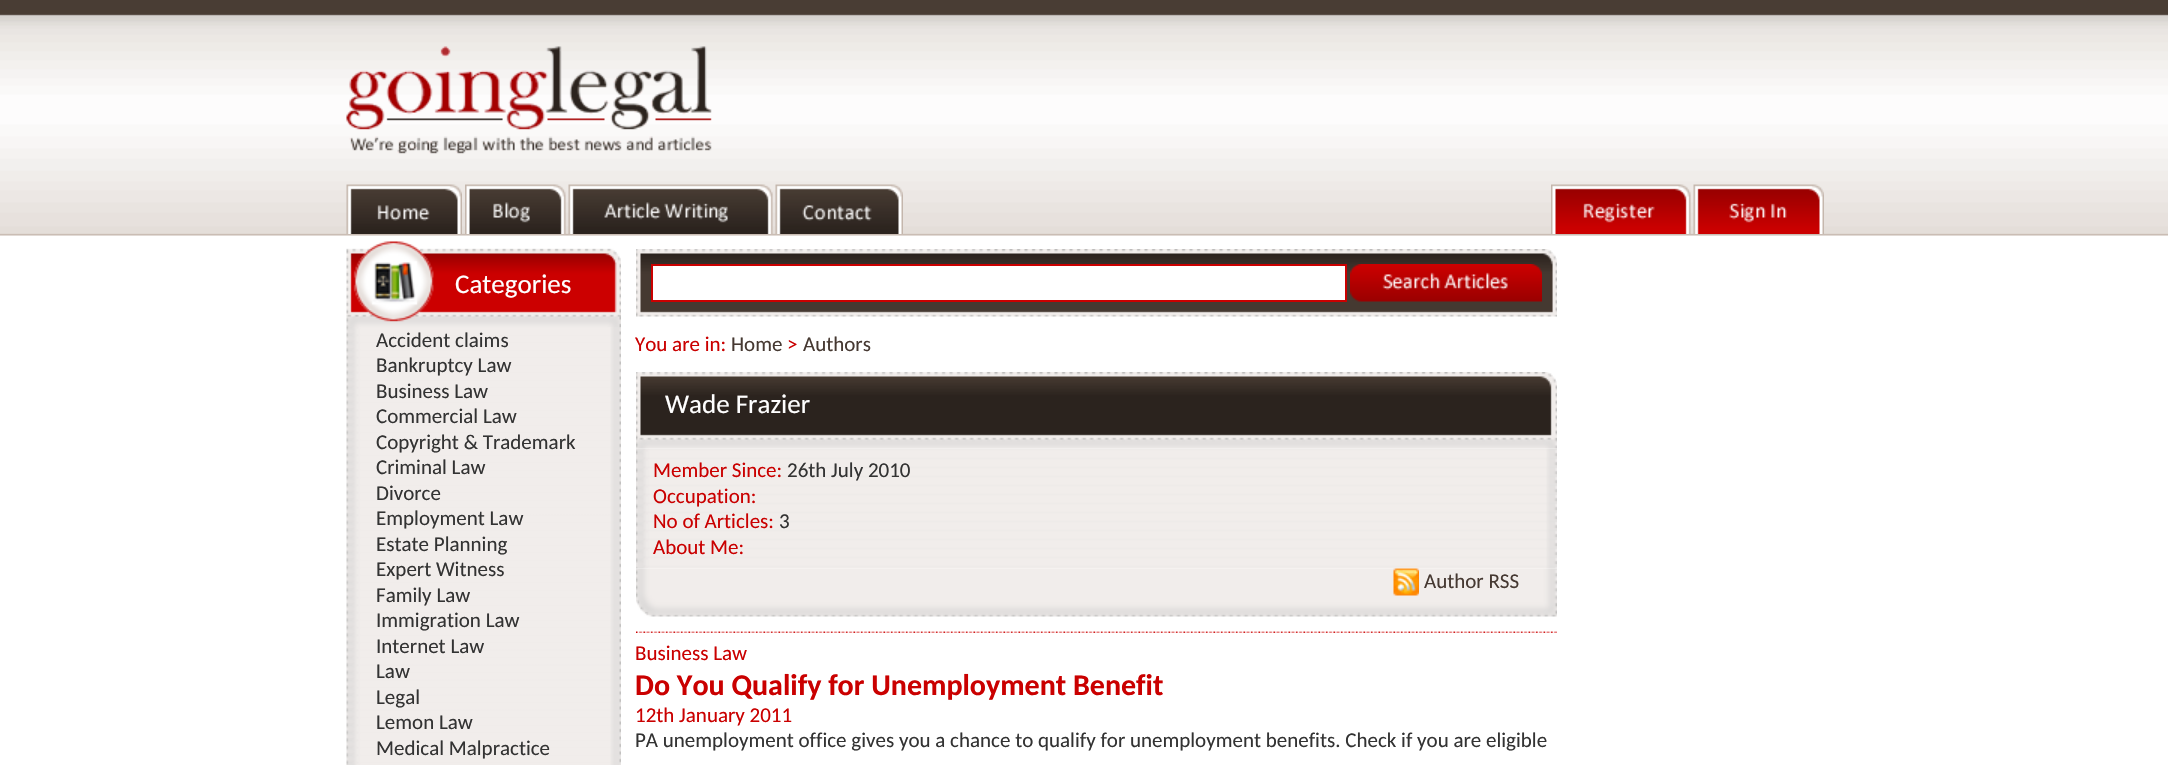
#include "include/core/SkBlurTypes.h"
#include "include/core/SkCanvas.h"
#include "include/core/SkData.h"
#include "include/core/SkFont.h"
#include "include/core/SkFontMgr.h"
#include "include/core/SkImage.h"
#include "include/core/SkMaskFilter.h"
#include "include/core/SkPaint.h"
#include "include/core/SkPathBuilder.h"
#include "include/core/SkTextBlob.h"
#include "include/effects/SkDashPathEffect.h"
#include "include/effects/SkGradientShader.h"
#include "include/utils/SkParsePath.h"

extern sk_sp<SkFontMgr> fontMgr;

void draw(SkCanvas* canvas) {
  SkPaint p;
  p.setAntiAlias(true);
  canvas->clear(SK_ColorWHITE);
  canvas->drawImageRect(SkImages::DeferredFromEncodedData(SkData::MakeFromFileName("images/1.png")), SkRect::MakeLTRB(0, 0, 2168, 236), SkSamplingOptions());
  canvas->drawImageRect(SkImages::DeferredFromEncodedData(SkData::MakeFromFileName("images/2.png")), SkRect::MakeLTRB(346, 46, 712, 154), SkSamplingOptions());
  canvas->drawImageRect(SkImages::DeferredFromEncodedData(SkData::MakeFromFileName("images/3.png")), SkRect::MakeLTRB(346, 184, 462, 234), SkSamplingOptions());
  canvas->drawImageRect(SkImages::DeferredFromEncodedData(SkData::MakeFromFileName("images/4.png")), SkRect::MakeLTRB(465, 184, 566, 234), SkSamplingOptions());
  canvas->drawImageRect(SkImages::DeferredFromEncodedData(SkData::MakeFromFileName("images/5.png")), SkRect::MakeLTRB(568, 184, 773, 234), SkSamplingOptions());
  canvas->drawImageRect(SkImages::DeferredFromEncodedData(SkData::MakeFromFileName("images/6.png")), SkRect::MakeLTRB(775, 184, 903, 234), SkSamplingOptions());
  canvas->drawImageRect(SkImages::DeferredFromEncodedData(SkData::MakeFromFileName("images/7.png")), SkRect::MakeLTRB(1551, 184, 1691, 234), SkSamplingOptions());
  canvas->drawImageRect(SkImages::DeferredFromEncodedData(SkData::MakeFromFileName("images/8.png")), SkRect::MakeLTRB(1693, 184, 1824, 234), SkSamplingOptions());
  canvas->drawImageRect(SkImages::DeferredFromEncodedData(SkData::MakeFromFileName("images/9.png")), SkRect::MakeLTRB(346, 241, 621, 327), SkSamplingOptions());
  canvas->drawImageRect(SkImages::DeferredFromEncodedData(SkData::MakeFromFileName("images/10.png")), SkRect::MakeLTRB(346, 327, 621, 765), SkSamplingOptions());
  canvas->drawImageRect(SkImages::DeferredFromEncodedData(SkData::MakeFromFileName("images/11.png")), SkRect::MakeLTRB(636, 249, 1557, 317), SkSamplingOptions());
  p.setColor(SK_ColorWHITE);
  canvas->drawRect(SkRect::MakeLTRB(652, 265, 1346, 301), p);
  p.setStyle(SkPaint::kStroke_Style);
  p.setStrokeWidth(2);
  p.setColor(SkColorSetRGB(202, 0, 0));
  canvas->drawRect(SkRect::MakeLTRB(652, 265, 1346, 301), p);
  canvas->drawImageRect(SkImages::DeferredFromEncodedData(SkData::MakeFromFileName("images/12.png")), SkRect::MakeLTRB(1350, 264, 1542, 302), SkSamplingOptions());
  canvas->drawImageRect(SkImages::DeferredFromEncodedData(SkData::MakeFromFileName("images/13.png")), SkRect::MakeLTRB(636, 372, 1557, 449), SkSamplingOptions());
  canvas->drawImageRect(SkImages::DeferredFromEncodedData(SkData::MakeFromFileName("images/14.png")), SkRect::MakeLTRB(636, 448, 1557, 569), SkSamplingOptions());
  canvas->drawImageRect(SkImages::DeferredFromEncodedData(SkData::MakeFromFileName("images/15.png")), SkRect::MakeLTRB(636, 568, 1557, 617), SkSamplingOptions());
  canvas->drawImageRect(SkImages::DeferredFromEncodedData(SkData::MakeFromFileName("images/16.png")), SkRect::MakeLTRB(1393, 568, 1419, 596), SkSamplingOptions());
  canvas->drawImageRect(SkImages::DeferredFromEncodedData(SkData::MakeFromFileName("images/17.png")), SkRect::MakeLTRB(636, 631, 1557, 633), SkSamplingOptions());
  SkFont font1(fontMgr->matchFamilyStyle("Carlito", SkFontStyle::Normal()), 27);
  font1.setSubpixel(true);
  p.setStyle(SkPaint::kFill_Style);
  p.setColor(SK_ColorWHITE);
  canvas->drawString("Categories", 455, 293, font1, p);
  SkFont font2(fontMgr->matchFamilyStyle("Carlito", SkFontStyle::Normal()), 21);
  font2.setSubpixel(true);
  p.setColor(SkColorSetRGB(51, 51, 51));
  canvas->drawString("Accident claims", 376, 347, font2, p);
  canvas->drawString("Bankruptcy Law", 376, 372, font2, p);
  canvas->drawString("Business Law", 376, 398, font2, p);
  canvas->drawString("Commercial Law", 376, 423, font2, p);
  canvas->drawString("Copyright & Trademark", 376, 449, font2, p);
  canvas->drawString("Criminal Law", 376, 474, font2, p);
  canvas->drawString("Divorce", 376, 500, font2, p);
  canvas->drawString("Employment Law", 376, 525, font2, p);
  canvas->drawString("Estate Planning", 376, 551, font2, p);
  canvas->drawString("Expert Witness", 376, 576, font2, p);
  canvas->drawString("Family Law", 376, 602, font2, p);
  canvas->drawString("Immigration Law", 376, 627, font2, p);
  canvas->drawString("Internet Law", 376, 653, font2, p);
  canvas->drawString("Law", 376, 678, font2, p);
  canvas->drawString("Legal", 376, 704, font2, p);
  canvas->drawString("Lemon Law", 376, 729, font2, p);
  canvas->drawString("Medical Malpractice", 376, 755, font2, p);
  p.setColor(SkColorSetRGB(202, 0, 0));
  canvas->drawString("You are in:", 635, 351, font2, p);
  p.setColor(SkColorSetRGB(70, 57, 50));
  canvas->drawString("Home", 731, 351, font2, p);
  p.setColor(SkColorSetRGB(202, 0, 0));
  canvas->drawString(">", 787, 351, font2, p);
  p.setColor(SkColorSetRGB(70, 57, 50));
  canvas->drawString("Authors", 803, 351, font2, p);
  p.setColor(SK_ColorWHITE);
  canvas->drawString("Wade Frazier", 665, 413, font1, p);
  p.setColor(SkColorSetRGB(202, 0, 0));
  canvas->drawString("Member Since:", 653, 477, font2, p);
  p.setColor(SkColorSetRGB(51, 51, 51));
  canvas->drawString("26th July 2010", 787, 477, font2, p);
  p.setColor(SkColorSetRGB(202, 0, 0));
  canvas->drawString("Occupation:", 653, 503, font2, p);
  canvas->drawString("No of Articles:", 653, 528, font2, p);
  p.setColor(SkColorSetRGB(51, 51, 51));
  canvas->drawString("3", 779, 528, font2, p);
  p.setColor(SkColorSetRGB(202, 0, 0));
  canvas->drawString("About Me:", 653, 554, font2, p);
  p.setColor(SkColorSetRGB(70, 57, 50));
  canvas->drawString("Author RSS", 1424, 588, font2, p);
  p.setColor(SkColorSetRGB(202, 0, 0));
  canvas->drawString("Business Law", 635, 660, font2, p);
  SkFont font3(fontMgr->matchFamilyStyle("Carlito", SkFontStyle::Bold()), 30);
  font3.setSubpixel(true);
  canvas->drawString("Do You Qualify for Unemployment Benefit", 635, 695, font3, p);
  canvas->drawString("12th January 2011", 635, 722, font2, p);
  p.setColor(SkColorSetRGB(51, 51, 51));
  canvas->drawString("PA unemployment office gives you a chance to qualify for unemployment benefits. Check if you are eligible", 635, 747, font2, p);
}
